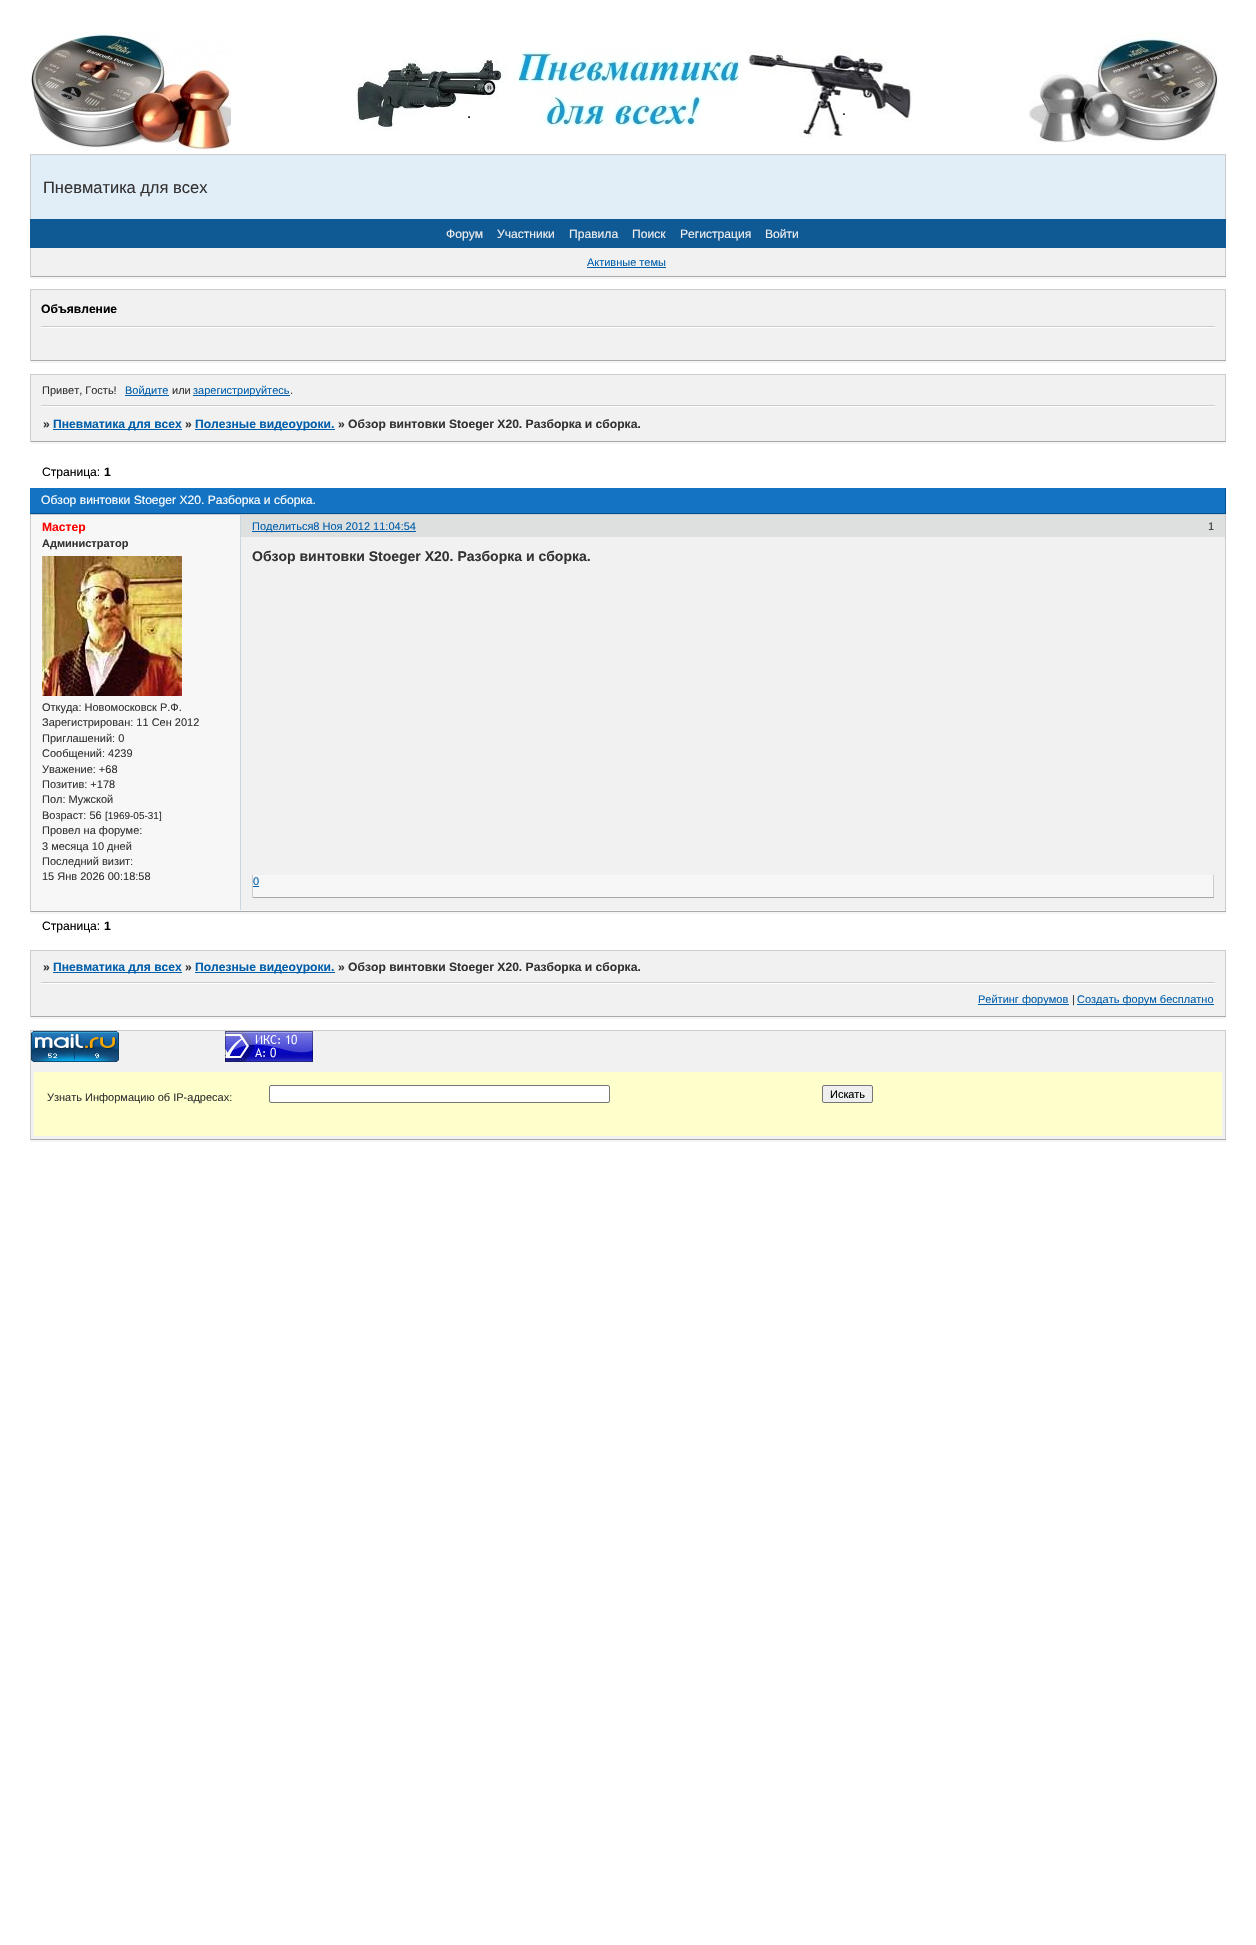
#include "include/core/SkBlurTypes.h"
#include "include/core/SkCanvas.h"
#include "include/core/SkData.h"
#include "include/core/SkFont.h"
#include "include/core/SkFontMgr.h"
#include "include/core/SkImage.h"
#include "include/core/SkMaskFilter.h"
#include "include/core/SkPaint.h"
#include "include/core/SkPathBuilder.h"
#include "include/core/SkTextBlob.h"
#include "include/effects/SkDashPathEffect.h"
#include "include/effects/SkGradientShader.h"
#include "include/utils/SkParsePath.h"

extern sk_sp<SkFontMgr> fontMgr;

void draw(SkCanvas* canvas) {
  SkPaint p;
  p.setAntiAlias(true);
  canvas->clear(SK_ColorWHITE);
  canvas->drawImageRect(SkImages::DeferredFromEncodedData(SkData::MakeFromFileName("images/1.png")), SkRect::MakeLTRB(31, 31, 231, 151), SkSamplingOptions());
  canvas->drawImageRect(SkImages::DeferredFromEncodedData(SkData::MakeFromFileName("images/2.png")), SkRect::MakeLTRB(355, 47, 913, 138), SkSamplingOptions());
  canvas->drawImageRect(SkImages::DeferredFromEncodedData(SkData::MakeFromFileName("images/3.png")), SkRect::MakeLTRB(1029, 31, 1219, 143), SkSamplingOptions());
  p.setColor(SkColorSetRGB(225, 237, 247));
  canvas->drawRect(SkRect::MakeLTRB(31, 155, 1225, 219), p);
  p.setColor(SkColorSetRGB(204, 204, 204));
  canvas->drawRect(SkRect::MakeLTRB(30, 154, 1226, 155), p);
  canvas->drawRect(SkRect::MakeLTRB(1225, 154, 1226, 219), p);
  canvas->drawRect(SkRect::MakeLTRB(30, 154, 31, 219), p);
  p.setColor(SkColorSetRGB(15, 89, 149));
  canvas->drawRect(SkRect::MakeLTRB(30, 219, 1226, 248), p);
  p.setColor(SkColorSetRGB(245, 245, 245));
  canvas->drawRect(SkRect::MakeLTRB(30, 277, 1226, 279), p);
  p.setColor(SkColorSetRGB(241, 241, 241));
  canvas->drawRect(SkRect::MakeLTRB(31, 248, 1225, 276), p);
  p.setColor(SkColorSetRGB(204, 204, 204));
  canvas->drawRect(SkRect::MakeLTRB(1225, 248, 1226, 277), p);
  p.setColor(SkColorSetRGB(170, 170, 170));
  canvas->drawRect(SkRect::MakeLTRB(30, 276, 1226, 277), p);
  p.setColor(SkColorSetRGB(204, 204, 204));
  canvas->drawRect(SkRect::MakeLTRB(30, 248, 31, 277), p);
  p.setColor(SkColorSetRGB(0, 94, 171));
  canvas->drawRect(SkRect::MakeLTRB(587, 267, 666, 268), p);
  p.setColor(SkColorSetRGB(245, 245, 245));
  canvas->drawRect(SkRect::MakeLTRB(30, 361, 1226, 363), p);
  p.setColor(SkColorSetRGB(241, 241, 241));
  canvas->drawRect(SkRect::MakeLTRB(31, 290, 1225, 360), p);
  p.setColor(SkColorSetRGB(204, 204, 204));
  canvas->drawRect(SkRect::MakeLTRB(30, 289, 1226, 290), p);
  canvas->drawRect(SkRect::MakeLTRB(1225, 289, 1226, 361), p);
  p.setColor(SkColorSetRGB(170, 170, 170));
  canvas->drawRect(SkRect::MakeLTRB(30, 360, 1226, 361), p);
  p.setColor(SkColorSetRGB(204, 204, 204));
  canvas->drawRect(SkRect::MakeLTRB(30, 289, 31, 361), p);
  p.setColor(SK_ColorWHITE);
  canvas->drawRect(SkRect::MakeLTRB(41, 327, 1215, 328), p);
  p.setColor(SkColorSetRGB(204, 204, 204));
  canvas->drawRect(SkRect::MakeLTRB(41, 326, 1215, 327), p);
  p.setColor(SkColorSetRGB(241, 241, 241));
  canvas->drawRect(SkRect::MakeLTRB(31, 375, 1225, 441), p);
  p.setColor(SkColorSetRGB(204, 204, 204));
  canvas->drawRect(SkRect::MakeLTRB(30, 374, 1226, 375), p);
  canvas->drawRect(SkRect::MakeLTRB(1225, 374, 1226, 442), p);
  canvas->drawRect(SkRect::MakeLTRB(30, 374, 31, 407), p);
  p.setColor(SkColorSetRGB(0, 94, 171));
  canvas->drawRect(SkRect::MakeLTRB(125, 395, 169, 396), p);
  canvas->drawRect(SkRect::MakeLTRB(193, 395, 290, 396), p);
  p.setColor(SkColorSetRGB(204, 204, 204));
  canvas->drawRect(SkRect::MakeLTRB(41, 405, 1215, 406), p);
  p.setColor(SK_ColorWHITE);
  canvas->drawRect(SkRect::MakeLTRB(41, 406, 1215, 407), p);
  p.setColor(SkColorSetRGB(245, 245, 245));
  canvas->drawRect(SkRect::MakeLTRB(30, 442, 1226, 444), p);
  p.setColor(SkColorSetRGB(170, 170, 170));
  canvas->drawRect(SkRect::MakeLTRB(30, 441, 1226, 442), p);
  p.setColor(SkColorSetRGB(204, 204, 204));
  canvas->drawRect(SkRect::MakeLTRB(30, 405, 31, 442), p);
  p.setColor(SkColorSetRGB(0, 94, 171));
  canvas->drawRect(SkRect::MakeLTRB(53, 429, 182, 430), p);
  canvas->drawRect(SkRect::MakeLTRB(195, 429, 335, 430), p);
  p.setColor(SkColorSetRGB(20, 116, 195));
  canvas->drawRect(SkRect::MakeLTRB(30, 488, 1225, 513), p);
  p.setColor(SkColorSetRGB(0, 79, 144));
  canvas->drawRect(SkRect::MakeLTRB(1225, 488, 1226, 514), p);
  canvas->drawRect(SkRect::MakeLTRB(30, 513, 1226, 514), p);
  p.setColor(SkColorSetRGB(245, 245, 245));
  canvas->drawRect(SkRect::MakeLTRB(30, 912, 1226, 914), p);
  p.setColor(SkColorSetRGB(201, 214, 224));
  canvas->drawRect(SkRect::MakeLTRB(240, 515, 241, 538), p);
  p.setColor(SkColorSetRGB(247, 247, 247));
  canvas->drawRect(SkRect::MakeLTRB(31, 537, 1225, 911), p);
  p.setColor(SkColorSetRGB(204, 204, 204));
  canvas->drawRect(SkRect::MakeLTRB(30, 514, 1226, 515), p);
  canvas->drawRect(SkRect::MakeLTRB(1225, 514, 1226, 912), p);
  p.setColor(SkColorSetRGB(170, 170, 170));
  canvas->drawRect(SkRect::MakeLTRB(30, 911, 1226, 912), p);
  p.setColor(SkColorSetRGB(204, 204, 204));
  canvas->drawRect(SkRect::MakeLTRB(30, 514, 31, 538), p);
  canvas->drawRect(SkRect::MakeLTRB(30, 537, 31, 912), p);
  canvas->drawImageRect(SkImages::DeferredFromEncodedData(SkData::MakeFromFileName("images/4.png")), SkRect::MakeLTRB(42, 556, 182, 696), SkSamplingOptions());
  p.setColor(SkColorSetRGB(241, 241, 241));
  canvas->drawRect(SkRect::MakeLTRB(241, 537, 1225, 910), p);
  p.setColor(SkColorSetRGB(201, 214, 224));
  canvas->drawRect(SkRect::MakeLTRB(240, 537, 241, 910), p);
  p.setColor(SkColorSetRGB(247, 247, 247));
  canvas->drawRect(SkRect::MakeLTRB(253, 875, 1213, 897), p);
  p.setColor(SkColorSetRGB(204, 204, 204));
  canvas->drawRect(SkRect::MakeLTRB(1213, 875, 1214, 898), p);
  p.setColor(SkColorSetRGB(170, 170, 170));
  canvas->drawRect(SkRect::MakeLTRB(252, 897, 1214, 898), p);
  p.setColor(SkColorSetRGB(204, 204, 204));
  canvas->drawRect(SkRect::MakeLTRB(252, 875, 253, 898), p);
  p.setColor(SkColorSetRGB(0, 94, 171));
  canvas->drawRect(SkRect::MakeLTRB(253, 886, 259, 887), p);
  p.setColor(SkColorSetRGB(247, 247, 247));
  canvas->drawRect(SkRect::MakeLTRB(31, 515, 240, 537), p);
  p.setColor(SkColorSetRGB(222, 223, 223));
  canvas->drawRect(SkRect::MakeLTRB(241, 515, 1225, 537), p);
  p.setColor(SkColorSetRGB(0, 94, 171));
  canvas->drawRect(SkRect::MakeLTRB(252, 531, 416, 532), p);
  p.setColor(SkColorSetRGB(204, 204, 204));
  canvas->drawRect(SkRect::MakeLTRB(30, 950, 1226, 951), p);
  canvas->drawRect(SkRect::MakeLTRB(1225, 982, 1226, 1017), p);
  canvas->drawRect(SkRect::MakeLTRB(1225, 950, 1226, 984), p);
  p.setColor(SkColorSetRGB(170, 170, 170));
  canvas->drawRect(SkRect::MakeLTRB(30, 1016, 1226, 1017), p);
  p.setColor(SkColorSetRGB(204, 204, 204));
  canvas->drawRect(SkRect::MakeLTRB(30, 982, 31, 1017), p);
  canvas->drawRect(SkRect::MakeLTRB(30, 950, 31, 984), p);
  p.setColor(SkColorSetRGB(241, 241, 241));
  canvas->drawRect(SkRect::MakeLTRB(31, 951, 1225, 1016), p);
  p.setColor(SkColorSetRGB(0, 94, 171));
  canvas->drawRect(SkRect::MakeLTRB(53, 972, 182, 973), p);
  canvas->drawRect(SkRect::MakeLTRB(195, 972, 335, 973), p);
  p.setColor(SkColorSetRGB(204, 204, 204));
  canvas->drawRect(SkRect::MakeLTRB(41, 982, 1215, 983), p);
  p.setColor(SK_ColorWHITE);
  canvas->drawRect(SkRect::MakeLTRB(41, 983, 1215, 984), p);
  p.setColor(SkColorSetRGB(245, 245, 245));
  canvas->drawRect(SkRect::MakeLTRB(30, 1017, 1226, 1019), p);
  p.setColor(SkColorSetRGB(0, 94, 171));
  canvas->drawRect(SkRect::MakeLTRB(978, 1004, 1069, 1005), p);
  canvas->drawRect(SkRect::MakeLTRB(1077, 1004, 1214, 1005), p);
  p.setColor(SkColorSetRGB(245, 245, 245));
  canvas->drawRect(SkRect::MakeLTRB(30, 1140, 1226, 1142), p);
  p.setColor(SkColorSetRGB(241, 241, 241));
  canvas->drawRect(SkRect::MakeLTRB(31, 1031, 1225, 1139), p);
  p.setColor(SkColorSetRGB(204, 204, 204));
  canvas->drawRect(SkRect::MakeLTRB(30, 1030, 1226, 1031), p);
  canvas->drawRect(SkRect::MakeLTRB(1225, 1030, 1226, 1140), p);
  p.setColor(SkColorSetRGB(170, 170, 170));
  canvas->drawRect(SkRect::MakeLTRB(30, 1139, 1226, 1140), p);
  p.setColor(SkColorSetRGB(204, 204, 204));
  canvas->drawRect(SkRect::MakeLTRB(30, 1030, 31, 1140), p);
  canvas->drawImageRect(SkImages::DeferredFromEncodedData(SkData::MakeFromFileName("images/5.png")), SkRect::MakeLTRB(31, 1031, 119, 1062), SkSamplingOptions());
  canvas->drawImageRect(SkImages::DeferredFromEncodedData(SkData::MakeFromFileName("images/6.png")), SkRect::MakeLTRB(225, 1031, 313, 1062), SkSamplingOptions());
  p.setColor(SkColorSetRGB(255, 255, 204));
  canvas->drawRect(SkRect::MakeLTRB(34, 1072, 1222, 1136), p);
  p.setColor(SK_ColorWHITE);
  canvas->drawRoundRect(SkRect::MakeLTRB(269.5f, 1085.5f, 609.5f, 1102.5f), 1.5f, 1.5f, p);
  p.setStyle(SkPaint::kStroke_Style);
  p.setStrokeWidth(1);
  p.setColor(SkColorSetRGB(118, 118, 118));
  canvas->drawRoundRect(SkRect::MakeLTRB(269.5f, 1085.5f, 609.5f, 1102.5f), 1.5f, 1.5f, p);
  p.setStyle(SkPaint::kFill_Style);
  p.setColor(SkColorSetRGB(239, 239, 239));
  canvas->drawRoundRect(SkRect::MakeLTRB(822.5f, 1085.5f, 872.5f, 1102.5f), 1.5f, 1.5f, p);
  p.setStyle(SkPaint::kStroke_Style);
  p.setColor(SkColorSetRGB(118, 118, 118));
  canvas->drawRoundRect(SkRect::MakeLTRB(822.5f, 1085.5f, 872.5f, 1102.5f), 1.5f, 1.5f, p);
  SkFont font1(fontMgr->matchFamilyStyle("Liberation Sans", SkFontStyle::Normal()), 16.5f);
  font1.setSubpixel(true);
  p.setStyle(SkPaint::kFill_Style);
  p.setColor(SkColorSetRGB(51, 51, 51));
  canvas->drawString("Пневматика для всех", 43, 193, font1, p);
  SkFont font2(fontMgr->matchFamilyStyle("Liberation Sans", SkFontStyle::Normal()), 12.1f);
  font2.setSubpixel(true);
  p.setColor(SkColorSetRGB(238, 238, 238));
  canvas->drawString("Форум", 446, 238, font2, p);
  canvas->drawString("Участники", 497, 238, font2, p);
  canvas->drawString("Правила", 569, 238, font2, p);
  canvas->drawString("Поиск", 632, 238, font2, p);
  canvas->drawString("Регистрация", 680, 238, font2, p);
  canvas->drawString("Войти", 765, 238, font2, p);
  SkFont font3(fontMgr->matchFamilyStyle("Liberation Sans", SkFontStyle::Normal()), 11);
  font3.setSubpixel(true);
  p.setColor(SkColorSetRGB(0, 94, 171));
  canvas->drawString("Активные темы", 587, 266, font3, p);
  SkFont font4(fontMgr->matchFamilyStyle("Liberation Sans", SkFontStyle::Bold()), 12.1f);
  font4.setSubpixel(true);
  p.setColor(SK_ColorBLACK);
  canvas->drawString("Объявление", 41, 313, font4, p);
  p.setColor(SkColorSetRGB(51, 51, 51));
  canvas->drawString("Привет, Гость!", 42, 394, font3, p);
  p.setColor(SkColorSetRGB(0, 94, 171));
  canvas->drawString("Войдите", 125, 394, font3, p);
  p.setColor(SkColorSetRGB(51, 51, 51));
  canvas->drawString("или", 172, 394, font3, p);
  p.setColor(SkColorSetRGB(0, 94, 171));
  canvas->drawString("зарегистрируйтесь", 193, 394, font3, p);
  p.setColor(SkColorSetRGB(51, 51, 51));
  canvas->drawString(".", 290, 394, font3, p);
  canvas->drawString("»", 43, 428, font4, p);
  p.setColor(SkColorSetRGB(0, 94, 171));
  canvas->drawString("Пневматика для всех", 53, 428, font4, p);
  p.setColor(SkColorSetRGB(51, 51, 51));
  canvas->drawString("»", 185, 428, font4, p);
  p.setColor(SkColorSetRGB(0, 94, 171));
  canvas->drawString("Полезные видеоуроки.", 195, 428, font4, p);
  p.setColor(SkColorSetRGB(51, 51, 51));
  canvas->drawString("» Обзор винтовки Stoeger X20. Разборка и сборка.", 338, 428, font4, p);
  p.setColor(SK_ColorBLACK);
  canvas->drawString("Страница:", 42, 476, font2, p);
  canvas->drawString("1", 104, 476, font4, p);
  p.setColor(SK_ColorWHITE);
  canvas->drawString("Обзор винтовки Stoeger X20. Разборка и сборка.", 41, 504, font2, p);
  p.setColor(SkColorSetRGB(255, 0, 0));
  canvas->drawString("Мастер", 42, 531, font4, p);
  SkFont font5(fontMgr->matchFamilyStyle("Liberation Sans", SkFontStyle::Bold()), 11);
  font5.setSubpixel(true);
  p.setColor(SkColorSetRGB(51, 51, 51));
  canvas->drawString("Администратор", 42, 547, font5, p);
  canvas->drawString("Откуда: Новомосковск Р.Ф.", 42, 711, font3, p);
  canvas->drawString("Зарегистрирован: 11 Сен 2012", 42, 726, font3, p);
  canvas->drawString("Приглашений: 0", 42, 742, font3, p);
  canvas->drawString("Сообщений: 4239", 42, 757, font3, p);
  canvas->drawString("Уважение: +68", 42, 773, font3, p);
  canvas->drawString("Позитив: +178", 42, 788, font3, p);
  canvas->drawString("Пол: Мужской", 42, 803, font3, p);
  canvas->drawString("Возраст: 56", 42, 819, font3, p);
  SkFont font6(fontMgr->matchFamilyStyle("Liberation Sans", SkFontStyle::Normal()), 10);
  font6.setSubpixel(true);
  canvas->drawString("[1969-05-31]", 105, 819, font6, p);
  canvas->drawString("Провел на форуме:", 42, 834, font3, p);
  canvas->drawString("3 месяца 10 дней", 42, 850, font3, p);
  canvas->drawString("Последний визит:", 42, 865, font3, p);
  canvas->drawString("15 Янв 2026 00:18:58", 42, 880, font3, p);
  SkFont font7(fontMgr->matchFamilyStyle("Liberation Sans", SkFontStyle::Bold()), 14);
  font7.setSubpixel(true);
  canvas->drawString("Обзор винтовки Stoeger X20. Разборка и сборка.", 252, 561, font7, p);
  p.setColor(SkColorSetRGB(0, 94, 171));
  canvas->drawString("0", 253, 885, font3, p);
  canvas->drawString("Поделиться8 Ноя 2012 11:04:54", 252, 530, font3, p);
  p.setColor(SkColorSetRGB(51, 51, 51));
  canvas->drawString("1", 1208, 530, font3, p);
  p.setColor(SK_ColorBLACK);
  canvas->drawString("Страница:", 42, 930, font2, p);
  canvas->drawString("1", 104, 930, font4, p);
  p.setColor(SkColorSetRGB(51, 51, 51));
  canvas->drawString("»", 43, 971, font4, p);
  p.setColor(SkColorSetRGB(0, 94, 171));
  canvas->drawString("Пневматика для всех", 53, 971, font4, p);
  p.setColor(SkColorSetRGB(51, 51, 51));
  canvas->drawString("»", 185, 971, font4, p);
  p.setColor(SkColorSetRGB(0, 94, 171));
  canvas->drawString("Полезные видеоуроки.", 195, 971, font4, p);
  p.setColor(SkColorSetRGB(51, 51, 51));
  canvas->drawString("» Обзор винтовки Stoeger X20. Разборка и сборка.", 338, 971, font4, p);
  p.setColor(SkColorSetRGB(0, 94, 171));
  canvas->drawString("Рейтинг форумов", 978, 1003, font3, p);
  p.setColor(SkColorSetRGB(51, 51, 51));
  canvas->drawString("|", 1072, 1003, font3, p);
  p.setColor(SkColorSetRGB(0, 94, 171));
  canvas->drawString("Создать форум бесплатно", 1077, 1003, font3, p);
  p.setColor(SkColorSetRGB(51, 51, 51));
  canvas->drawString("Узнать Информацию об IP-адресах:", 47, 1101, font3, p);
  p.setColor(SK_ColorBLACK);
  canvas->drawString("Искать", 830, 1098, font3, p);
}
